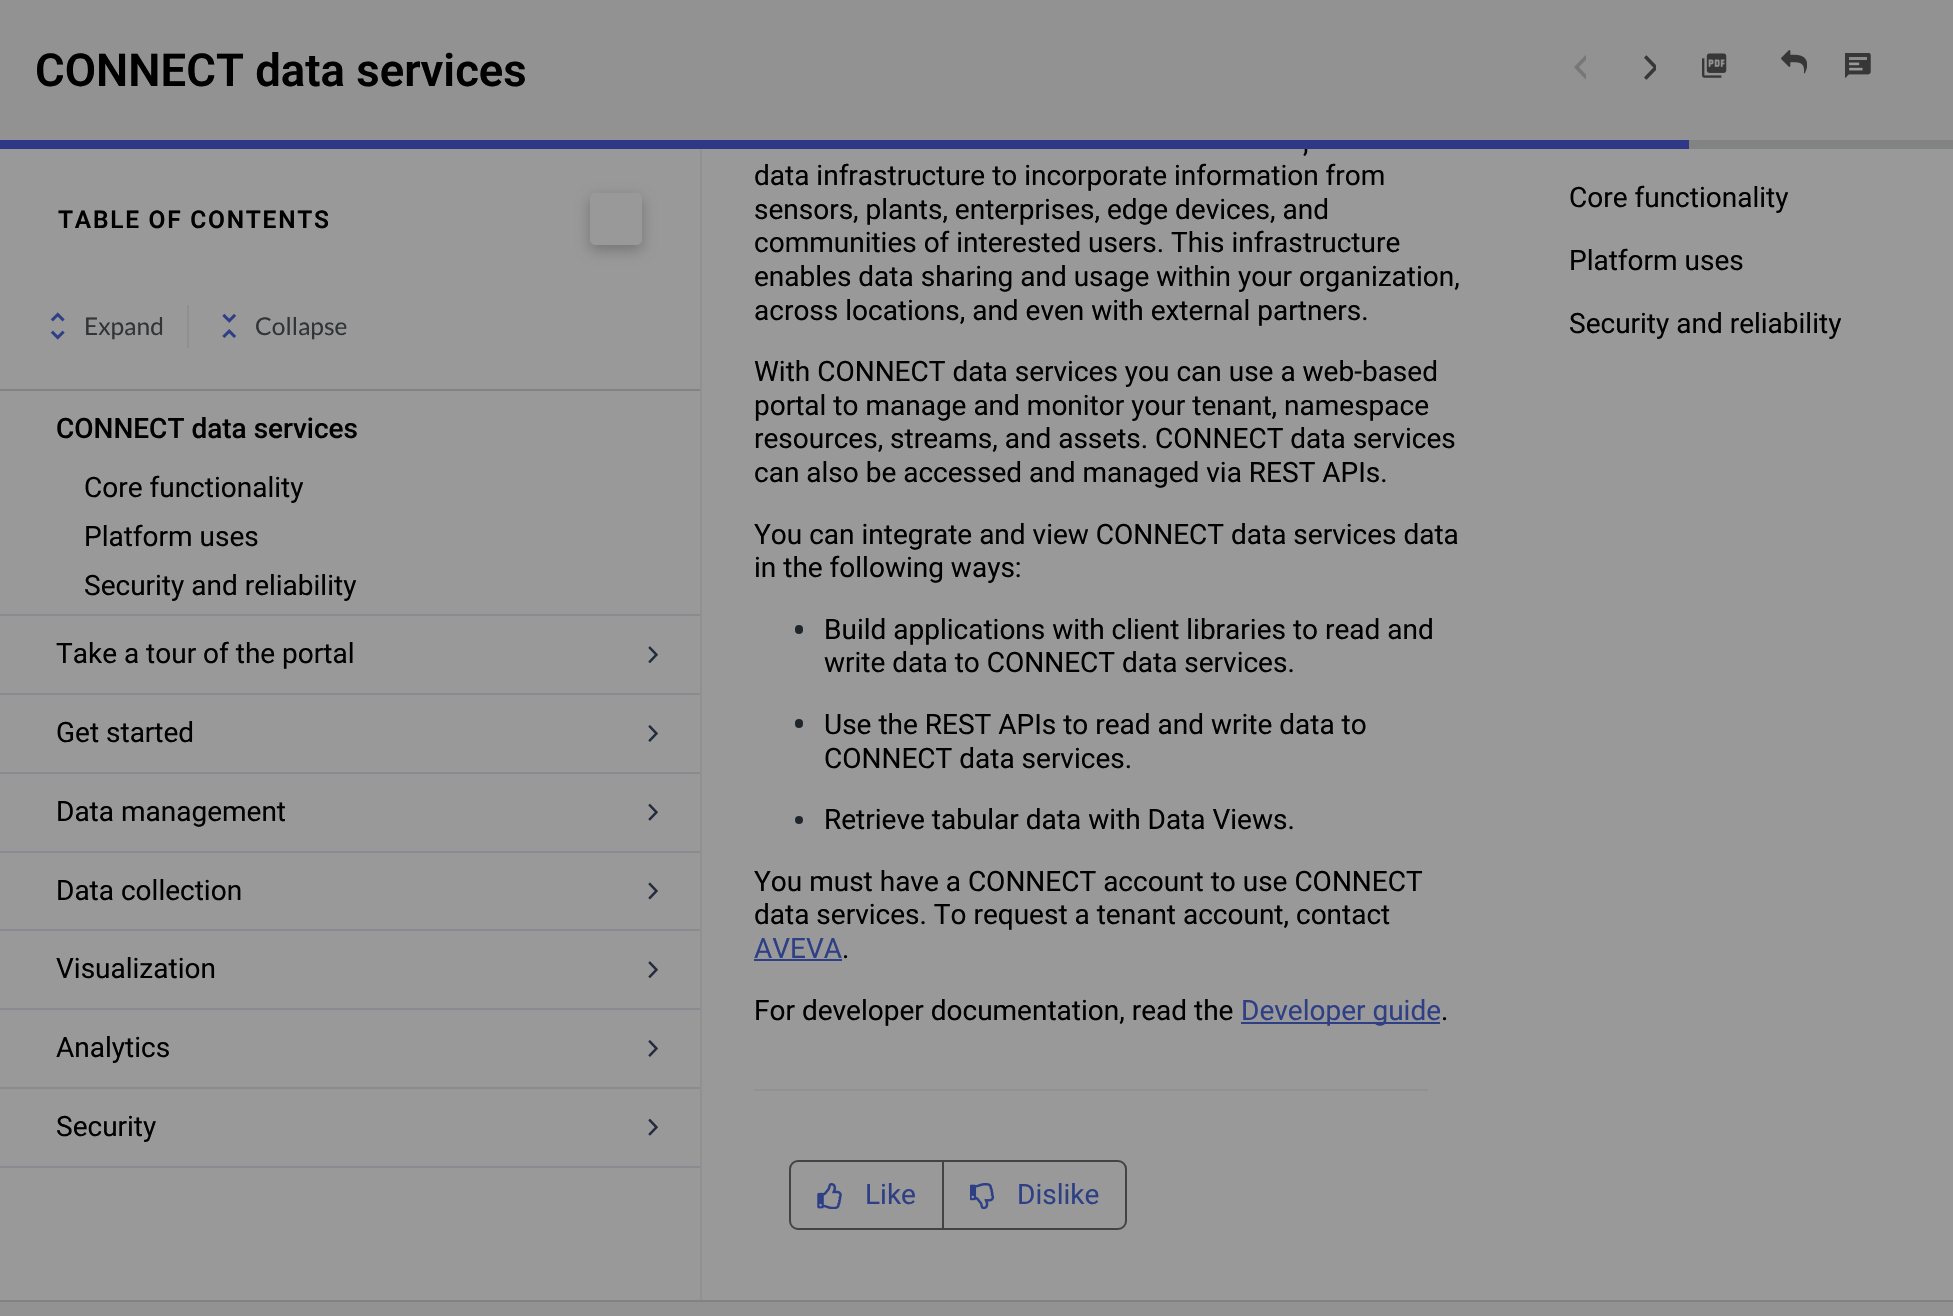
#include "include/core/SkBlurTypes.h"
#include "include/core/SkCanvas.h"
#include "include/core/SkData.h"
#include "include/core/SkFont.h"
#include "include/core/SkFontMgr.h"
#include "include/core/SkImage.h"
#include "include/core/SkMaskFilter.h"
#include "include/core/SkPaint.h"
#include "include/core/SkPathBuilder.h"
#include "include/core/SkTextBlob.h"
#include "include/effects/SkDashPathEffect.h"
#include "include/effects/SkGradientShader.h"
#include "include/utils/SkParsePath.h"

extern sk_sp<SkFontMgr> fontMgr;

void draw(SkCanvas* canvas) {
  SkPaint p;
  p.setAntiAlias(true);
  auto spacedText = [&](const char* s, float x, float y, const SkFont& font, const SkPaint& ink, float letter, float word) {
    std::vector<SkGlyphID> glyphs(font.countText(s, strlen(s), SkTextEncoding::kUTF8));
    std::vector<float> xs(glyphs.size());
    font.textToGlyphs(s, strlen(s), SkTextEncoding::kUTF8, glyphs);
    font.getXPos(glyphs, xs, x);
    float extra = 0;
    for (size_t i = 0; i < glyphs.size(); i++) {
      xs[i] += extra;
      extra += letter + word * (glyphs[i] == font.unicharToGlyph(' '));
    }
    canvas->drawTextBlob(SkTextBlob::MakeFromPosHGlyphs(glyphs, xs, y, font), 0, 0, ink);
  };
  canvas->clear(SkColorSetRGB(153, 153, 153));
  p.setColor(SkColorSetRGB(146, 146, 147));
  canvas->drawRect(SkRect::MakeLTRB(0, 0, 1953, 140), p);
  canvas->drawImageRect(SkImages::DeferredFromEncodedData(SkData::MakeFromFileName("images/1.png")), SkRect::MakeLTRB(1574, 55, 1586, 80), SkSamplingOptions());
  canvas->drawImageRect(SkImages::DeferredFromEncodedData(SkData::MakeFromFileName("images/2.png")), SkRect::MakeLTRB(1644, 55, 1656, 80), SkSamplingOptions());
  canvas->drawImageRect(SkImages::DeferredFromEncodedData(SkData::MakeFromFileName("images/3.png")), SkRect::MakeLTRB(1702, 53, 1727, 78), SkSamplingOptions());
  canvas->drawImageRect(SkImages::DeferredFromEncodedData(SkData::MakeFromFileName("images/4.png")), SkRect::MakeLTRB(1781, 50, 1807, 74), SkSamplingOptions());
  canvas->drawImageRect(SkImages::DeferredFromEncodedData(SkData::MakeFromFileName("images/5.png")), SkRect::MakeLTRB(1845, 53, 1871, 79), SkSamplingOptions());
  p.setColor(SkColorSetRGB(46, 56, 134));
  canvas->drawRect(SkRect::MakeLTRB(0, 140, 1689, 149), p);
  p.setColor(SkColorSetRGB(130, 131, 131));
  canvas->drawRect(SkRect::MakeLTRB(1689, 140, 1953, 149), p);
  p.setColor(SkColorSetRGB(145, 145, 145));
  canvas->drawRect(SkRect::MakeLTRB(700, 149, 702, 1300), p);
  p.setColor(SkColorSetRGB(130, 131, 135));
  canvas->drawRect(SkRect::MakeLTRB(0, 389, 700, 391), p);
  p.setColor(SkColorSetARGB(61, 0, 0, 0));
  p.setMaskFilter(SkMaskFilter::MakeBlur(kNormal_SkBlurStyle, 7));
  canvas->drawRoundRect(SkRect::MakeLTRB(590, 198, 642, 250), 5, 5, p);
  p.setMaskFilter(nullptr);
  p.setColor(SkColorSetRGB(153, 153, 153));
  canvas->drawRoundRect(SkRect::MakeLTRB(590, 193, 642, 245), 5, 5, p);
  canvas->drawImageRect(SkImages::DeferredFromEncodedData(SkData::MakeFromFileName("images/6.png")), SkRect::MakeLTRB(50, 312, 65, 340), SkSamplingOptions());
  p.setColor(SkColorSetRGB(143, 144, 144));
  canvas->drawRect(SkRect::MakeLTRB(187, 305, 189, 348), p);
  canvas->drawImageRect(SkImages::DeferredFromEncodedData(SkData::MakeFromFileName("images/7.png")), SkRect::MakeLTRB(222, 313, 237, 338), SkSamplingOptions());
  p.setColor(SkColorSetRGB(136, 139, 144));
  canvas->drawRect(SkRect::MakeLTRB(0, 614, 700, 616), p);
  canvas->drawRect(SkRect::MakeLTRB(0, 693, 700, 695), p);
  canvas->drawImageRect(SkImages::DeferredFromEncodedData(SkData::MakeFromFileName("images/8.png")), SkRect::MakeLTRB(648, 646, 658, 663), SkSamplingOptions());
  canvas->drawRect(SkRect::MakeLTRB(0, 772, 700, 774), p);
  canvas->drawImageRect(SkImages::DeferredFromEncodedData(SkData::MakeFromFileName("images/9.png")), SkRect::MakeLTRB(648, 725, 658, 742), SkSamplingOptions());
  canvas->drawRect(SkRect::MakeLTRB(0, 851, 700, 853), p);
  canvas->drawImageRect(SkImages::DeferredFromEncodedData(SkData::MakeFromFileName("images/10.png")), SkRect::MakeLTRB(648, 803, 658, 821), SkSamplingOptions());
  canvas->drawRect(SkRect::MakeLTRB(0, 929, 700, 931), p);
  canvas->drawImageRect(SkImages::DeferredFromEncodedData(SkData::MakeFromFileName("images/11.png")), SkRect::MakeLTRB(648, 882, 658, 900), SkSamplingOptions());
  canvas->drawRect(SkRect::MakeLTRB(0, 1008, 700, 1010), p);
  canvas->drawImageRect(SkImages::DeferredFromEncodedData(SkData::MakeFromFileName("images/8.png")), SkRect::MakeLTRB(648, 961, 658, 978), SkSamplingOptions());
  canvas->drawRect(SkRect::MakeLTRB(0, 1087, 700, 1089), p);
  canvas->drawImageRect(SkImages::DeferredFromEncodedData(SkData::MakeFromFileName("images/9.png")), SkRect::MakeLTRB(648, 1040, 658, 1057), SkSamplingOptions());
  canvas->drawRect(SkRect::MakeLTRB(0, 1166, 700, 1168), p);
  canvas->drawImageRect(SkImages::DeferredFromEncodedData(SkData::MakeFromFileName("images/10.png")), SkRect::MakeLTRB(648, 1118, 658, 1136), SkSamplingOptions());
  p.setColor(SkColorSetRGB(30, 37, 43));
  canvas->drawRoundRect(SkRect::MakeLTRB(795, 625, 803, 634), 4, 4, p);
  canvas->drawRoundRect(SkRect::MakeLTRB(795, 719, 803, 728), 4, 4, p);
  canvas->drawCircle(799, 820, 4, p);
  p.setColor(SkColorSetRGB(46, 63, 134));
  canvas->drawRect(SkRect::MakeLTRB(754, 959, 842, 961), p);
  canvas->drawRect(SkRect::MakeLTRB(1241, 1022, 1440, 1024), p);
  p.setColor(SkColorSetRGB(145, 145, 145));
  canvas->drawRect(SkRect::MakeLTRB(754, 1089, 1428, 1091), p);
  p.setStyle(SkPaint::kStroke_Style);
  p.setStrokeWidth(2);
  p.setColor(SkColorSetRGB(67, 67, 67));
  canvas->drawRoundRect(SkRect::MakeLTRB(790, 1161, 1126, 1229), 8, 8, p);
  p.setStyle(SkPaint::kFill_Style);
  canvas->drawRect(SkRect::MakeLTRB(942, 1162, 944, 1229), p);
  canvas->drawImageRect(SkImages::DeferredFromEncodedData(SkData::MakeFromFileName("images/12.png")), SkRect::MakeLTRB(817, 1183, 842, 1209), SkSamplingOptions());
  canvas->drawImageRect(SkImages::DeferredFromEncodedData(SkData::MakeFromFileName("images/13.png")), SkRect::MakeLTRB(970, 1183, 995, 1209), SkSamplingOptions());
  p.setColor(SkColorSetRGB(146, 146, 147));
  canvas->drawRect(SkRect::MakeLTRB(0, 1302, 1953, 1316), p);
  p.setColor(SkColorSetRGB(130, 130, 131));
  canvas->drawRect(SkRect::MakeLTRB(0, 1300, 1953, 1302), p);
  SkFont font1(fontMgr->matchFamilyStyle("Roboto", SkFontStyle(600, SkFontStyle::kNormal_Width, SkFontStyle::kUpright_Slant)), 45.5f);
  font1.setSubpixel(true);
  p.setColor(SK_ColorBLACK);
  canvas->drawString("CONNECT data services", 35, 86, font1, p);
  SkFont font2(fontMgr->matchFamilyStyle("Roboto", SkFontStyle(600, SkFontStyle::kNormal_Width, SkFontStyle::kUpright_Slant)), 24.5f);
  font2.setSubpixel(true);
  spacedText("TABLE OF CONTENTS", 58, 228, font2, p, 1.75f, 0);
  SkFont font3(fontMgr->matchFamilyStyle("Lato", SkFontStyle::Normal()), 24.5f);
  font3.setSubpixel(true);
  p.setColor(SkColorSetRGB(49, 53, 56));
  canvas->drawString("Expand", 84, 335, font3, p);
  canvas->drawString("Collapse", 255, 335, font3, p);
  SkFont font4(fontMgr->matchFamilyStyle("Roboto", SkFontStyle(500, SkFontStyle::kNormal_Width, SkFontStyle::kUpright_Slant)), 28);
  font4.setSubpixel(true);
  p.setColor(SK_ColorBLACK);
  canvas->drawString("CONNECT data services", 56, 438, font4, p);
  SkFont font5(fontMgr->matchFamilyStyle("Roboto", SkFontStyle::Normal()), 28);
  font5.setSubpixel(true);
  canvas->drawString("Core functionality", 84, 497, font5, p);
  canvas->drawString("Platform uses", 84, 546, font5, p);
  canvas->drawString("Security and reliability", 84, 595, font5, p);
  canvas->drawString("Take a tour of the portal", 56, 663, font5, p);
  canvas->drawString("Get started", 56, 742, font5, p);
  canvas->drawString("Data management", 56, 821, font5, p);
  canvas->drawString("Data collection", 56, 900, font5, p);
  canvas->drawString("Visualization", 56, 978, font5, p);
  canvas->drawString("Analytics", 56, 1057, font5, p);
  canvas->drawString("Security", 56, 1136, font5, p);
  canvas->drawString(",", 1303, 152, font5, p);
  canvas->drawString("data infrastructure to incorporate information from", 754, 185, font5, p);
  canvas->drawString("sensors, plants, enterprises, edge devices, and", 754, 219, font5, p);
  canvas->drawString("communities of interested users. This infrastructure", 754, 252, font5, p);
  canvas->drawString("enables data sharing and usage within your organization,", 754, 286, font5, p);
  canvas->drawString("across locations, and even with external partners.", 754, 320, font5, p);
  canvas->drawString("With CONNECT data services you can use a web-based", 754, 381, font5, p);
  canvas->drawString("portal to manage and monitor your tenant, namespace", 754, 415, font5, p);
  canvas->drawString("resources, streams, and assets. CONNECT data services", 754, 448, font5, p);
  canvas->drawString("can also be accessed and managed via REST APIs.", 754, 482, font5, p);
  canvas->drawString("You can integrate and view CONNECT data services data", 754, 544, font5, p);
  canvas->drawString("in the following ways:", 754, 577, font5, p);
  canvas->drawString("Build applications with client libraries to read and", 824, 639, font5, p);
  canvas->drawString("write data to CONNECT data services.", 824, 672, font5, p);
  canvas->drawString("Use the REST APIs to read and write data to", 824, 734, font5, p);
  canvas->drawString("CONNECT data services.", 824, 768, font5, p);
  canvas->drawString("Retrieve tabular data with Data Views.", 824, 829, font5, p);
  canvas->drawString("You must have a CONNECT account to use CONNECT", 754, 891, font5, p);
  canvas->drawString("data services. To request a tenant account, contact", 754, 924, font5, p);
  p.setColor(SkColorSetRGB(46, 63, 134));
  canvas->drawString("AVEVA", 754, 958, font5, p);
  p.setColor(SK_ColorBLACK);
  canvas->drawString(".", 842, 958, font5, p);
  canvas->drawString("For developer documentation, read the", 754, 1020, font5, p);
  p.setColor(SkColorSetRGB(46, 63, 134));
  canvas->drawString("Developer guide", 1241, 1020, font5, p);
  p.setColor(SK_ColorBLACK);
  canvas->drawString(".", 1441, 1020, font5, p);
  canvas->drawString("Core functionality", 1569, 207, font5, p);
  canvas->drawString("Platform uses", 1569, 270, font5, p);
  canvas->drawString("Security and reliability", 1569, 333, font5, p);
  p.setColor(SkColorSetRGB(46, 63, 134));
  canvas->drawString("Like", 865, 1204, font5, p);
  canvas->drawString("Dislike", 1017, 1204, font5, p);
}
